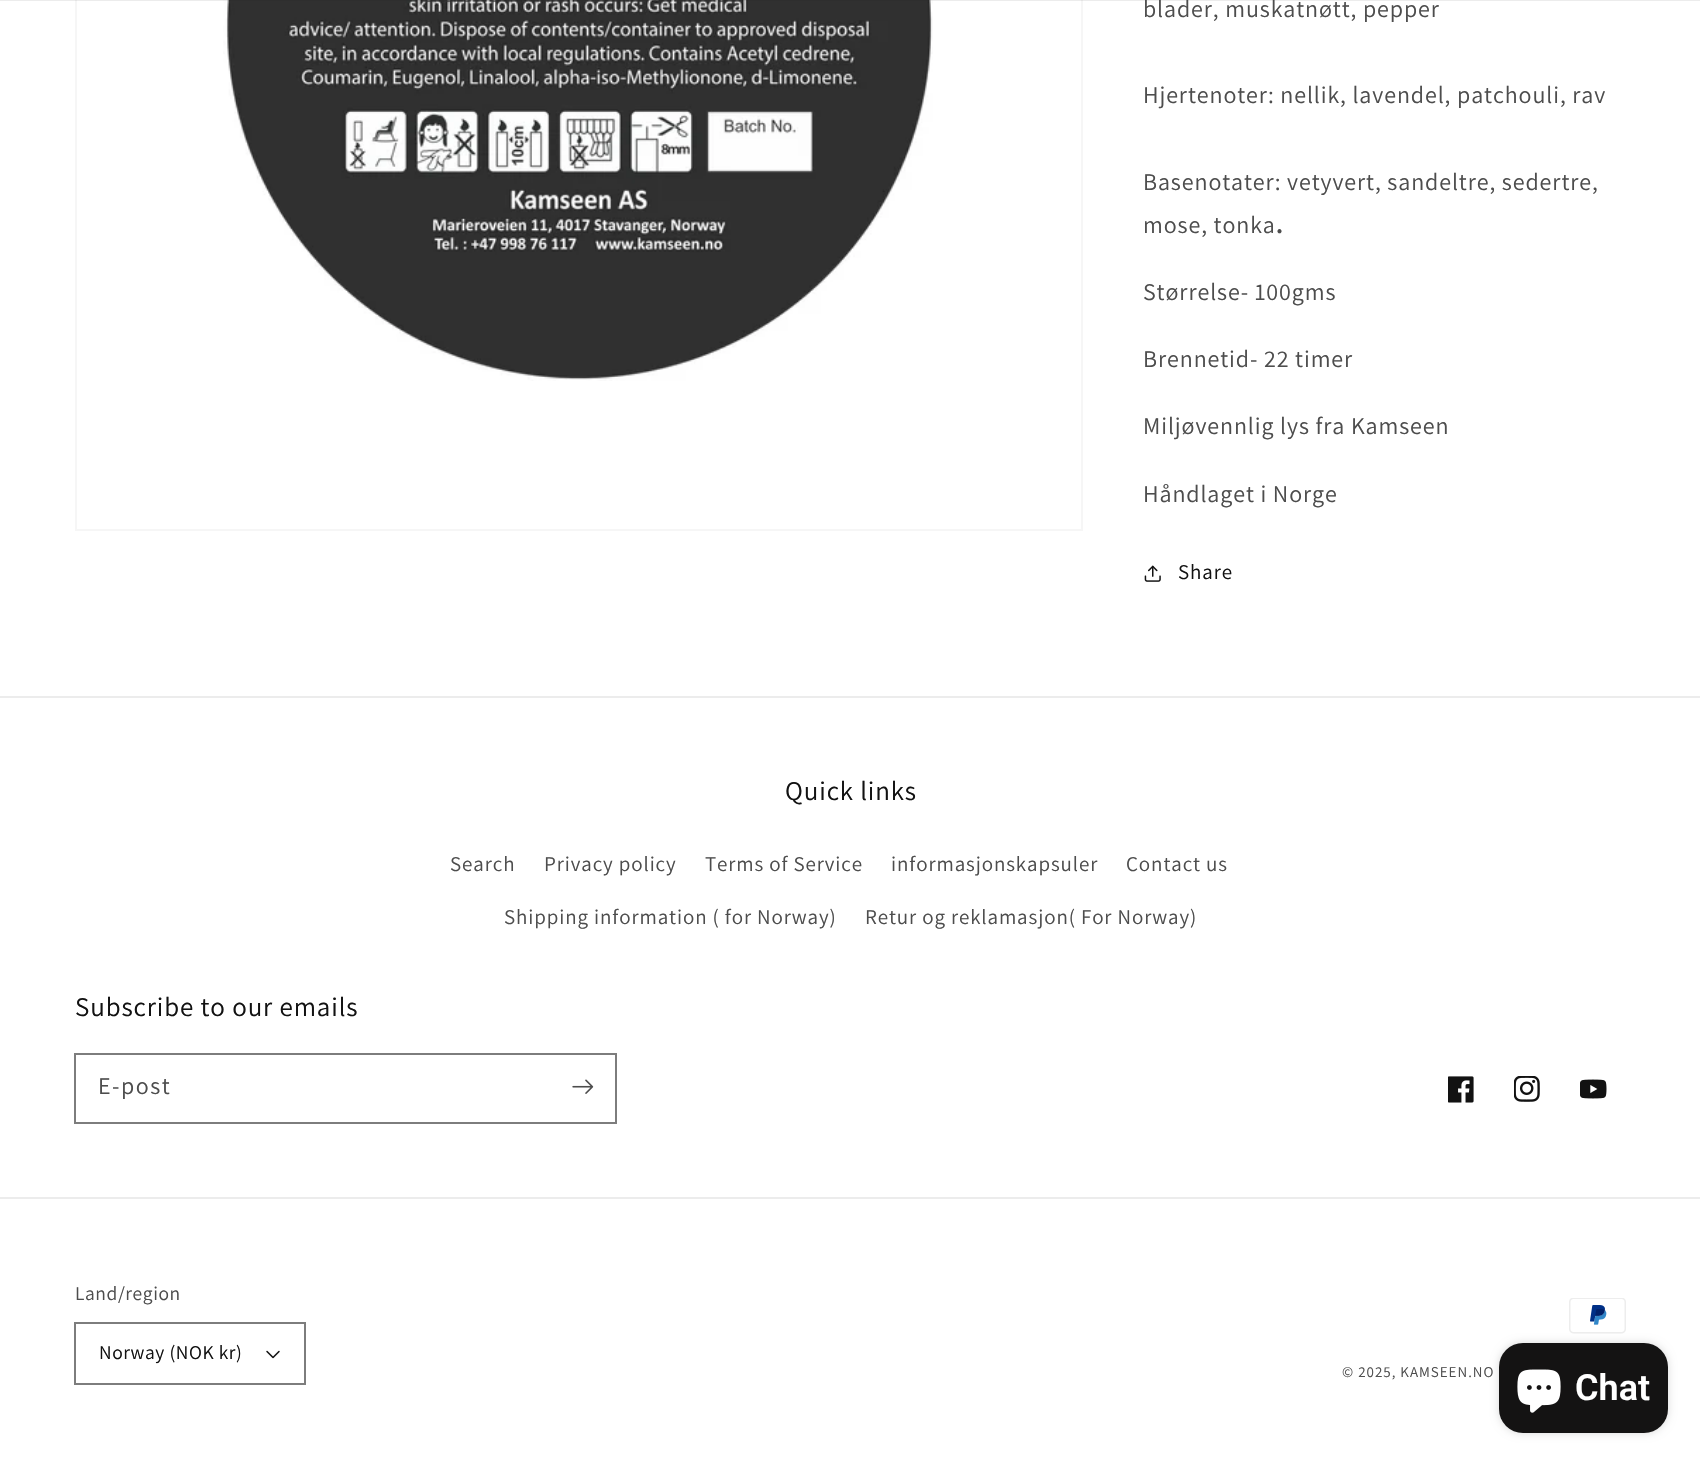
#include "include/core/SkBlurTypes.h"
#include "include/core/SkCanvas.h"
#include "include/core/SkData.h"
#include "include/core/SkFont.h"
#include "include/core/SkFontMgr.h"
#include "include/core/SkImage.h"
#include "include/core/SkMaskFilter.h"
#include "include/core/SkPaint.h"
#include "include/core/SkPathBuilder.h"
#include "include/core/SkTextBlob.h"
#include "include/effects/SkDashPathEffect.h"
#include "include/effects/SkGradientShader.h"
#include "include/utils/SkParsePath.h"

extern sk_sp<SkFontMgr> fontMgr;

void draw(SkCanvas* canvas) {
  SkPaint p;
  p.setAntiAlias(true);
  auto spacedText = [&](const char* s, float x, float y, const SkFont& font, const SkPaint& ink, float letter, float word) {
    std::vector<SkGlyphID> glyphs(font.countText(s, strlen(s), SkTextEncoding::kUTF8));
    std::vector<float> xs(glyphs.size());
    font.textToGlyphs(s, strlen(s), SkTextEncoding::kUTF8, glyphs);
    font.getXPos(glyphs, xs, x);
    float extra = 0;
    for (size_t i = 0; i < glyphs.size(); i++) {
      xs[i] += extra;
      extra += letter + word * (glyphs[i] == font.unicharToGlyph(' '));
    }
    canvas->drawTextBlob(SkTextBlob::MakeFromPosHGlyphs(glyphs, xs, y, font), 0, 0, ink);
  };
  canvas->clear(SK_ColorWHITE);
  p.setStyle(SkPaint::kStroke_Style);
  p.setStrokeWidth(2);
  p.setColor(SkColorSetRGB(246, 246, 246));
  canvas->drawRect(SkRect::MakeLTRB(76, -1, 1082, 530), p);
  canvas->drawImageRect(SkImages::DeferredFromEncodedData(SkData::MakeFromFileName("images/1.png")), SkRect::MakeLTRB(223, 0, 933, 381), SkSamplingOptions());
  p.setStyle(SkPaint::kFill_Style);
  p.setColor(SkColorSetARGB(20, 18, 18, 18));
  canvas->drawRect(SkRect::MakeLTRB(0, 0, 1700, 1), p);
  canvas->drawImageRect(SkImages::DeferredFromEncodedData(SkData::MakeFromFileName("images/2.png")), SkRect::MakeLTRB(1144, 565, 1161, 582), SkSamplingOptions());
  p.setColor(SkColorSetRGB(236, 236, 236));
  canvas->drawRect(SkRect::MakeLTRB(0, 696, 1700, 698), p);
  p.setStyle(SkPaint::kStroke_Style);
  p.setColor(SkColorSetRGB(125, 125, 125));
  canvas->drawRect(SkRect::MakeLTRB(75, 1054, 616, 1123), p);
  canvas->drawImageRect(SkImages::DeferredFromEncodedData(SkData::MakeFromFileName("images/3.png")), SkRect::MakeLTRB(572, 1079, 594, 1094), SkSamplingOptions());
  canvas->drawImageRect(SkImages::DeferredFromEncodedData(SkData::MakeFromFileName("images/4.png")), SkRect::MakeLTRB(1448, 1076, 1474, 1103), SkSamplingOptions());
  canvas->drawImageRect(SkImages::DeferredFromEncodedData(SkData::MakeFromFileName("images/5.png")), SkRect::MakeLTRB(1514, 1076, 1540, 1102), SkSamplingOptions());
  canvas->drawImageRect(SkImages::DeferredFromEncodedData(SkData::MakeFromFileName("images/6.png")), SkRect::MakeLTRB(1580, 1079, 1607, 1099), SkSamplingOptions());
  p.setStyle(SkPaint::kFill_Style);
  p.setColor(SkColorSetRGB(236, 236, 236));
  canvas->drawRect(SkRect::MakeLTRB(0, 1197, 1700, 1199), p);
  p.setStyle(SkPaint::kStroke_Style);
  p.setColor(SkColorSetRGB(125, 125, 125));
  canvas->drawRect(SkRect::MakeLTRB(75, 1323, 305, 1384), p);
  canvas->drawImageRect(SkImages::DeferredFromEncodedData(SkData::MakeFromFileName("images/7.png")), SkRect::MakeLTRB(266, 1350, 280, 1359), SkSamplingOptions());
  canvas->drawImageRect(SkImages::DeferredFromEncodedData(SkData::MakeFromFileName("images/8.png")), SkRect::MakeLTRB(1569, 1298, 1626, 1334), SkSamplingOptions());
  p.setStyle(SkPaint::kFill_Style);
  p.setColor(SkColorSetARGB(38, 0, 0, 0));
  p.setMaskFilter(SkMaskFilter::MakeBlur(kNormal_SkBlurStyle, 4));
  canvas->drawRoundRect(SkRect::MakeLTRB(1499, 1343, 1668, 1433), 24, 24, p);
  p.setMaskFilter(nullptr);
  p.setColor(SkColorSetRGB(20, 19, 19));
  canvas->drawRoundRect(SkRect::MakeLTRB(1499, 1343, 1668, 1433), 24, 24, p);
  canvas->drawImageRect(SkImages::DeferredFromEncodedData(SkData::MakeFromFileName("images/9.png")), SkRect::MakeLTRB(1517, 1369, 1561, 1413), SkSamplingOptions());
  SkFont font1(fontMgr->matchFamilyStyle("Assistant", SkFontStyle::Normal()), 24);
  font1.setSubpixel(true);
  p.setColor(SkColorSetRGB(77, 77, 77));
  spacedText("blader, muskatnøtt, pepper", 1143, 17, font1, p, 0.9f, 0);
  spacedText("Hjertenoter: nellik, lavendel, patchouli, rav", 1143, 103, font1, p, 0.9f, 0);
  spacedText("Basenotater: vetyvert, sandeltre, sedertre,", 1143, 190, font1, p, 0.9f, 0);
  spacedText("mose, tonka", 1143, 233, font1, p, 0.9f, 0);
  SkFont font2(fontMgr->matchFamilyStyle("Assistant", SkFontStyle::Bold()), 24);
  font2.setSubpixel(true);
  spacedText(".", 1276, 233, font2, p, 0.9f, 0);
  spacedText("Størrelse- 100gms", 1143, 300, font1, p, 0.9f, 0);
  spacedText("Brennetid- 22 timer", 1143, 367, font1, p, 0.9f, 0);
  spacedText("Miljøvennlig lys fra Kamseen", 1143, 434, font1, p, 0.9f, 0);
  spacedText("Håndlaget i Norge", 1143, 502, font1, p, 0.9f, 0);
  SkFont font3(fontMgr->matchFamilyStyle("Assistant", SkFontStyle::Normal()), 21);
  font3.setSubpixel(true);
  p.setColor(SkColorSetRGB(18, 18, 18));
  spacedText("Share", 1178, 579, font3, p, 0.9f, 0);
  SkFont font4(fontMgr->matchFamilyStyle("Assistant", SkFontStyle::Normal()), 27);
  font4.setSubpixel(true);
  spacedText("Quick links", 785, 800, font4, p, 0.9f, 0);
  p.setColor(SkColorSetRGB(77, 77, 77));
  spacedText("Search", 450, 871, font3, p, 0.9f, 0);
  spacedText("Privacy policy", 544, 871, font3, p, 0.9f, 0);
  spacedText("Terms of Service", 705, 871, font3, p, 0.9f, 0);
  spacedText("informasjonskapsuler", 891, 871, font3, p, 0.9f, 0);
  spacedText("Contact us", 1126, 871, font3, p, 0.9f, 0);
  spacedText("Shipping information ( for Norway)", 504, 924, font3, p, 0.9f, 0);
  spacedText("Retur og reklamasjon( For Norway)", 865, 924, font3, p, 0.9f, 0);
  p.setColor(SkColorSetRGB(18, 18, 18));
  spacedText("Subscribe to our emails", 75, 1016, font4, p, 0.9f, 0);
  p.setColor(SkColorSetRGB(77, 77, 77));
  spacedText("E-post", 98, 1094, font1, p, 1.5f, 0);
  SkFont font5(fontMgr->matchFamilyStyle("Assistant", SkFontStyle::Normal()), 19.5f);
  font5.setSubpixel(true);
  spacedText("Land/region", 75, 1300, font5, p, 0.6f, 0);
  p.setColor(SkColorSetRGB(18, 18, 18));
  spacedText("Norway (NOK kr)", 99, 1359, font5, p, 0.6f, 0);
  SkFont font6(fontMgr->matchFamilyStyle("Assistant", SkFontStyle::Normal()), 15);
  font6.setSubpixel(true);
  p.setColor(SkColorSetRGB(77, 77, 77));
  spacedText("© 2025, KAMSEEN.NO", 1342, 1377, font6, p, 1, 0);
  SkFont font7(fontMgr->matchFamilyStyle("Roboto", SkFontStyle(600, SkFontStyle::kNormal_Width, SkFontStyle::kUpright_Slant)), 36);
  font7.setSubpixel(true);
  p.setColor(SK_ColorWHITE);
  canvas->drawString("Chat", 1575, 1400, font7, p);
}
